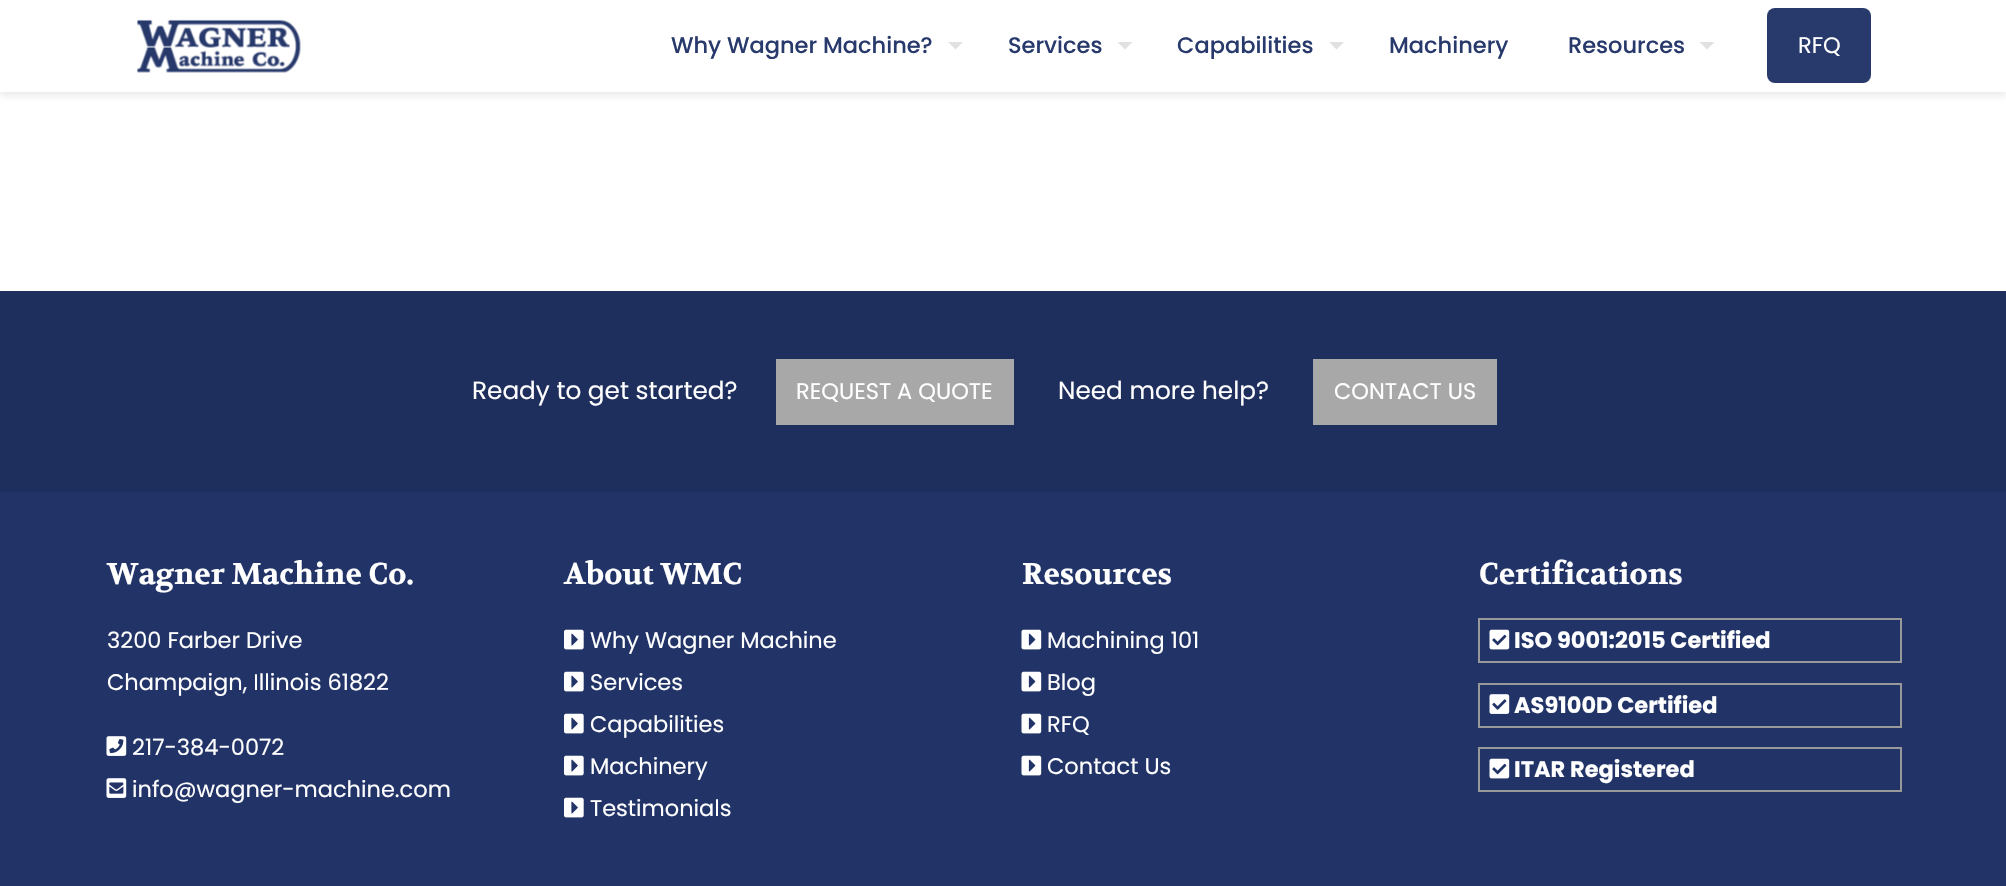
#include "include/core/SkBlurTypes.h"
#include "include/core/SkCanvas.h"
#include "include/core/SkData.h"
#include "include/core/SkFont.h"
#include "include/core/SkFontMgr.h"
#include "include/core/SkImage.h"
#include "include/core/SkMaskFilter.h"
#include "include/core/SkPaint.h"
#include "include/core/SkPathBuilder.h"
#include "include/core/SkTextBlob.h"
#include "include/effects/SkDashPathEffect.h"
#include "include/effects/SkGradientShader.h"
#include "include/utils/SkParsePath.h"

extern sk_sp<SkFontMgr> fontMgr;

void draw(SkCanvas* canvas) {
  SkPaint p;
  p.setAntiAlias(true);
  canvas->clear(SK_ColorWHITE);
  p.setColor(SkColorSetARGB(26, 8, 8, 8));
  p.setMaskFilter(SkMaskFilter::MakeBlur(kNormal_SkBlurStyle, 4));
  canvas->drawRect(SkRect::MakeLTRB(0, 3, 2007, 95), p);
  p.setMaskFilter(nullptr);
  p.setColor(SK_ColorWHITE);
  canvas->drawRect(SkRect::MakeLTRB(0, 0, 2006, 92), p);
  canvas->drawImageRect(SkImages::DeferredFromEncodedData(SkData::MakeFromFileName("images/1.png")), SkRect::MakeLTRB(136, 19, 301, 73), SkSamplingOptions());
  p.setColor(SkColorSetRGB(225, 225, 225));
  canvas->drawPath(SkPathBuilder().moveTo(948, 42).lineTo(963, 42).lineTo(955.5f, 49.5f).close().detach(), p);
  canvas->drawPath(SkPathBuilder().moveTo(1117.5f, 42).lineTo(1132.5f, 42).lineTo(1125, 49.5f).close().detach(), p);
  canvas->drawPath(SkPathBuilder().moveTo(1329, 42).lineTo(1344, 42).lineTo(1336.5f, 49.5f).close().detach(), p);
  canvas->drawPath(SkPathBuilder().moveTo(1699.5f, 42).lineTo(1714.5f, 42).lineTo(1707, 49.5f).close().detach(), p);
  p.setColor(SkColorSetRGB(40, 57, 108));
  canvas->drawRoundRect(SkRect::MakeLTRB(1767, 8, 1871, 83), 8, 8, p);
  p.setColor(SkColorSetRGB(33, 51, 103));
  canvas->drawRect(SkRect::MakeLTRB(0, 492, 2006, 886), p);
  p.setColor(SkColorSetRGB(30, 46, 93));
  canvas->drawRect(SkRect::MakeLTRB(0, 291, 2006, 492), p);
  p.setColor(SkColorSetRGB(168, 168, 168));
  canvas->drawRect(SkRect::MakeLTRB(776, 359, 1014, 425), p);
  canvas->drawRect(SkRect::MakeLTRB(1313, 359, 1497, 425), p);
  canvas->drawImageRect(SkImages::DeferredFromEncodedData(SkData::MakeFromFileName("images/2.png")), SkRect::MakeLTRB(106, 736, 127, 756), SkSamplingOptions());
  canvas->drawImageRect(SkImages::DeferredFromEncodedData(SkData::MakeFromFileName("images/3.png")), SkRect::MakeLTRB(106, 778, 127, 798), SkSamplingOptions());
  canvas->drawImageRect(SkImages::DeferredFromEncodedData(SkData::MakeFromFileName("images/4.png")), SkRect::MakeLTRB(564, 629, 584, 650), SkSamplingOptions());
  canvas->drawImageRect(SkImages::DeferredFromEncodedData(SkData::MakeFromFileName("images/4.png")), SkRect::MakeLTRB(564, 671, 584, 692), SkSamplingOptions());
  canvas->drawImageRect(SkImages::DeferredFromEncodedData(SkData::MakeFromFileName("images/4.png")), SkRect::MakeLTRB(564, 713, 584, 734), SkSamplingOptions());
  canvas->drawImageRect(SkImages::DeferredFromEncodedData(SkData::MakeFromFileName("images/4.png")), SkRect::MakeLTRB(564, 755, 584, 776), SkSamplingOptions());
  canvas->drawImageRect(SkImages::DeferredFromEncodedData(SkData::MakeFromFileName("images/4.png")), SkRect::MakeLTRB(564, 797, 584, 818), SkSamplingOptions());
  canvas->drawImageRect(SkImages::DeferredFromEncodedData(SkData::MakeFromFileName("images/5.png")), SkRect::MakeLTRB(1021, 629, 1042, 650), SkSamplingOptions());
  canvas->drawImageRect(SkImages::DeferredFromEncodedData(SkData::MakeFromFileName("images/5.png")), SkRect::MakeLTRB(1021, 671, 1042, 692), SkSamplingOptions());
  canvas->drawImageRect(SkImages::DeferredFromEncodedData(SkData::MakeFromFileName("images/5.png")), SkRect::MakeLTRB(1021, 713, 1042, 734), SkSamplingOptions());
  canvas->drawImageRect(SkImages::DeferredFromEncodedData(SkData::MakeFromFileName("images/5.png")), SkRect::MakeLTRB(1021, 755, 1042, 776), SkSamplingOptions());
  canvas->drawImageRect(SkImages::DeferredFromEncodedData(SkData::MakeFromFileName("images/6.png")), SkRect::MakeLTRB(1489, 629, 1510, 650), SkSamplingOptions());
  p.setStyle(SkPaint::kStroke_Style);
  p.setStrokeWidth(2);
  p.setColor(SkColorSetRGB(153, 153, 153));
  canvas->drawRect(SkRect::MakeLTRB(1479, 619, 1901, 662), p);
  canvas->drawImageRect(SkImages::DeferredFromEncodedData(SkData::MakeFromFileName("images/7.png")), SkRect::MakeLTRB(1489, 694, 1510, 714), SkSamplingOptions());
  canvas->drawRect(SkRect::MakeLTRB(1479, 684, 1901, 727), p);
  canvas->drawImageRect(SkImages::DeferredFromEncodedData(SkData::MakeFromFileName("images/6.png")), SkRect::MakeLTRB(1489, 758, 1510, 779), SkSamplingOptions());
  canvas->drawRect(SkRect::MakeLTRB(1479, 748, 1901, 791), p);
  SkFont font1(fontMgr->matchFamilyStyle("Poppins", SkFontStyle(500, SkFontStyle::kNormal_Width, SkFontStyle::kUpright_Slant)), 22.5f);
  font1.setSubpixel(true);
  p.setStyle(SkPaint::kFill_Style);
  p.setColor(SkColorSetRGB(40, 57, 108));
  canvas->drawString("Why Wagner Machine?", 671, 53, font1, p);
  canvas->drawString("Services", 1008, 53, font1, p);
  canvas->drawString("Capabilities", 1177, 53, font1, p);
  canvas->drawString("Machinery", 1389, 53, font1, p);
  canvas->drawString("Resources", 1568, 53, font1, p);
  SkFont font2(fontMgr->matchFamilyStyle("Poppins", SkFontStyle::Normal()), 22.5f);
  font2.setSubpixel(true);
  p.setColor(SK_ColorWHITE);
  canvas->drawString("RFQ", 1798, 53, font2, p);
  SkFont font3(fontMgr->matchFamilyStyle("Poppins", SkFontStyle::Normal()), 24.75f);
  font3.setSubpixel(true);
  canvas->drawString("Ready to get started?", 472, 399, font3, p);
  canvas->drawString("REQUEST A QUOTE", 796, 399, font2, p);
  canvas->drawString("Need more help?", 1058, 399, font3, p);
  canvas->drawString("CONTACT US", 1334, 399, font2, p);
  SkFont font4(fontMgr->matchFamilyStyle("Volkhov", SkFontStyle::Bold()), 30);
  font4.setSubpixel(true);
  canvas->drawString("Wagner Machine Co.", 107, 584, font4, p);
  canvas->drawString("3200 Farber Drive", 107, 648, font2, p);
  canvas->drawString("Champaign, Illinois 61822", 107, 690, font2, p);
  canvas->drawString("217-384-0072", 132, 755, font2, p);
  canvas->drawString("info@wagner-machine.com", 132, 797, font2, p);
  canvas->drawString("About WMC", 564, 584, font4, p);
  canvas->drawString("Why Wagner Machine", 590, 648, font2, p);
  canvas->drawString("Services", 590, 690, font2, p);
  canvas->drawString("Capabilities", 590, 732, font2, p);
  canvas->drawString("Machinery", 590, 774, font2, p);
  canvas->drawString("Testimonials", 590, 816, font2, p);
  canvas->drawString("Resources", 1022, 584, font4, p);
  canvas->drawString("Machining 101", 1047, 648, font2, p);
  canvas->drawString("Blog", 1047, 690, font2, p);
  canvas->drawString("RFQ", 1047, 732, font2, p);
  canvas->drawString("Contact Us", 1047, 774, font2, p);
  canvas->drawString("Certifications", 1479, 584, font4, p);
  SkFont font5(fontMgr->matchFamilyStyle("Poppins", SkFontStyle::Bold()), 22.5f);
  font5.setSubpixel(true);
  canvas->drawString("ISO 9001:2015 Certified", 1514, 648, font5, p);
  canvas->drawString("AS9100D Certified", 1514, 713, font5, p);
  canvas->drawString("ITAR Registered", 1514, 777, font5, p);
}
